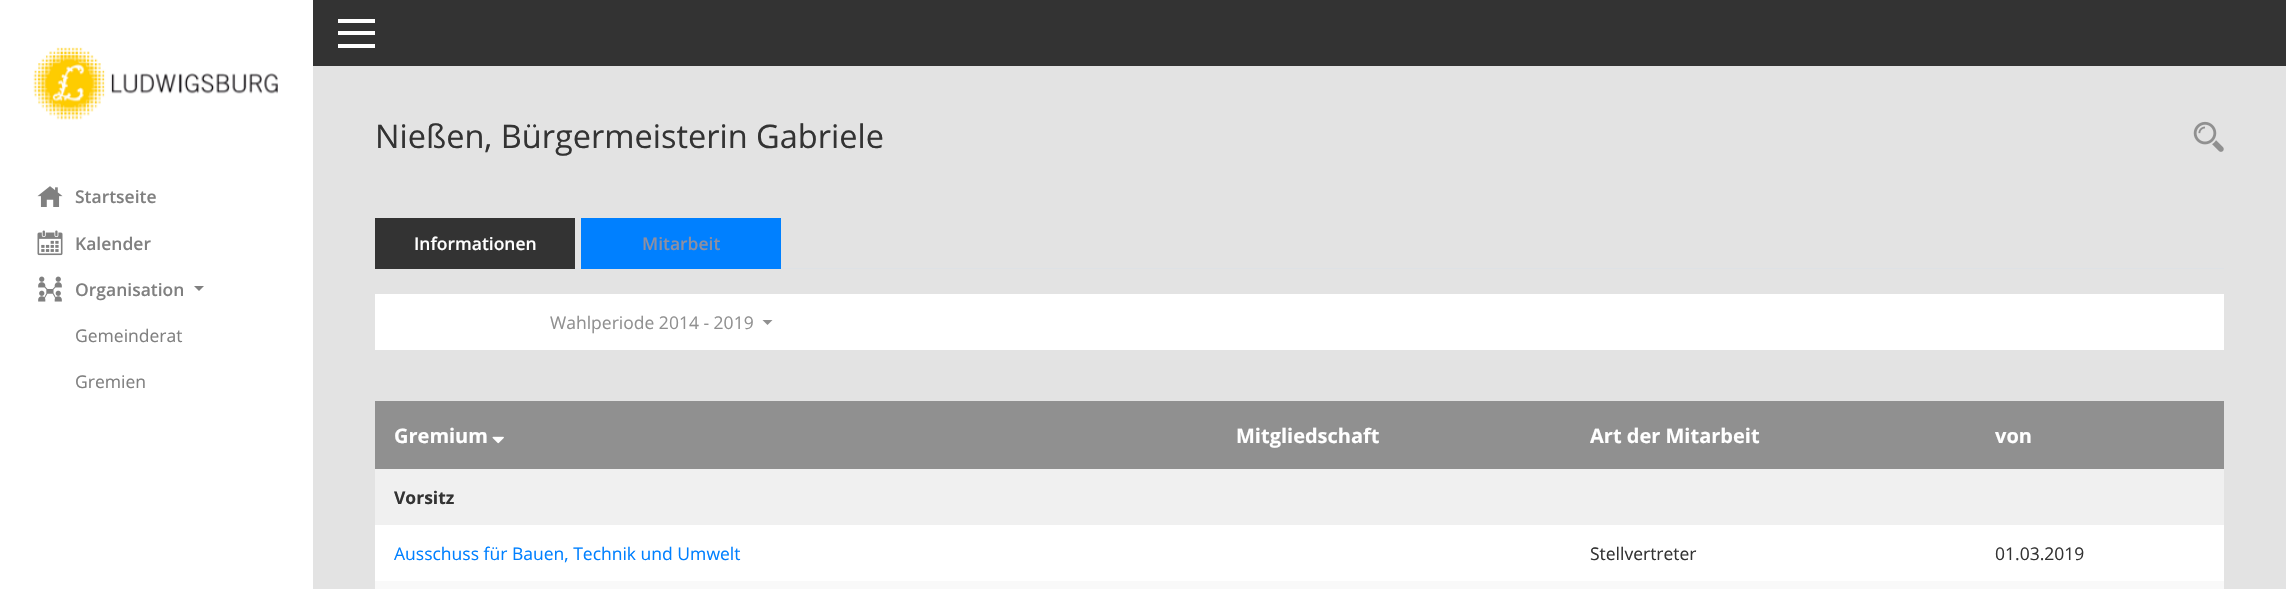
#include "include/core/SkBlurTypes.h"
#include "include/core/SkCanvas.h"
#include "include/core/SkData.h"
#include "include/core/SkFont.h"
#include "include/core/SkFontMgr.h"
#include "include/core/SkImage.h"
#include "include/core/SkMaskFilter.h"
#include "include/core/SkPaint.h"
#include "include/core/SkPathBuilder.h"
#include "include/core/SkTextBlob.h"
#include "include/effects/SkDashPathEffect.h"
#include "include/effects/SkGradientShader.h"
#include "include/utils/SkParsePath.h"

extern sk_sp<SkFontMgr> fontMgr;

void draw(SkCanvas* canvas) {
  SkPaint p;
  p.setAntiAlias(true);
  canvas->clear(SkColorSetRGB(227, 227, 227));
  p.setColor(SK_ColorWHITE);
  canvas->drawRect(SkRect::MakeLTRB(0, 0, 313, 589), p);
  canvas->drawImageRect(SkImages::DeferredFromEncodedData(SkData::MakeFromFileName("images/1.png")), SkRect::MakeLTRB(33, 47, 278, 120), SkSamplingOptions());
  canvas->drawImageRect(SkImages::DeferredFromEncodedData(SkData::MakeFromFileName("images/2.png")), SkRect::MakeLTRB(37, 186, 63, 207), SkSamplingOptions());
  canvas->drawImageRect(SkImages::DeferredFromEncodedData(SkData::MakeFromFileName("images/3.png")), SkRect::MakeLTRB(37, 230, 63, 256), SkSamplingOptions());
  canvas->drawImageRect(SkImages::DeferredFromEncodedData(SkData::MakeFromFileName("images/4.png")), SkRect::MakeLTRB(38, 276, 62, 302), SkSamplingOptions());
  p.setColor(SkColorSetRGB(128, 128, 128));
  canvas->drawPath(SkPathBuilder().moveTo(194, 286).lineTo(204, 286).lineTo(199, 291).close().detach(), p);
  p.setColor(SkColorSetRGB(51, 51, 51));
  canvas->drawRect(SkRect::MakeLTRB(313, 0, 2286, 66), p);
  p.setColor(SK_ColorWHITE);
  canvas->drawRect(SkRect::MakeLTRB(338, 19, 375, 23), p);
  canvas->drawRect(SkRect::MakeLTRB(338, 31, 375, 35), p);
  canvas->drawRect(SkRect::MakeLTRB(338, 44, 375, 48), p);
  canvas->drawImageRect(SkImages::DeferredFromEncodedData(SkData::MakeFromFileName("images/5.png")), SkRect::MakeLTRB(2193, 121, 2224, 152), SkSamplingOptions());
  p.setColor(SkColorSetRGB(222, 226, 230));
  canvas->drawRect(SkRect::MakeLTRB(575, 268, 2224, 269), p);
  p.setColor(SkColorSetRGB(51, 51, 51));
  canvas->drawRect(SkRect::MakeLTRB(375, 218, 575, 269), p);
  p.setColor(SkColorSetRGB(0, 128, 255));
  canvas->drawRect(SkRect::MakeLTRB(581, 218, 781, 269), p);
  p.setColor(SK_ColorWHITE);
  canvas->drawRect(SkRect::MakeLTRB(375, 294, 2224, 350), p);
  p.setColor(SkColorSetRGB(144, 144, 144));
  canvas->drawPath(SkPathBuilder().moveTo(762.5f, 320).lineTo(772.5f, 320).lineTo(767.5f, 325).close().detach(), p);
  p.setColor(SK_ColorWHITE);
  canvas->drawRect(SkRect::MakeLTRB(375, 525, 2224, 581), p);
  p.setColor(SkColorSetRGB(144, 144, 144));
  canvas->drawRect(SkRect::MakeLTRB(375, 401, 2224, 469), p);
  canvas->drawImageRect(SkImages::DeferredFromEncodedData(SkData::MakeFromFileName("images/6.png")), SkRect::MakeLTRB(492, 436, 504, 444), SkSamplingOptions());
  p.setColor(SkColorSetRGB(240, 240, 240));
  canvas->drawRect(SkRect::MakeLTRB(375, 469, 2224, 525), p);
  p.setColor(SkColorSetRGB(249, 249, 249));
  canvas->drawRect(SkRect::MakeLTRB(375, 581, 2224, 589), p);
  SkFont font1(fontMgr->matchFamilyStyle("Open Sans", SkFontStyle(600, SkFontStyle::kNormal_Width, SkFontStyle::kUpright_Slant)), 17.5f);
  font1.setSubpixel(true);
  p.setColor(SkColorSetRGB(128, 128, 128));
  canvas->drawString("Startseite", 75, 203, font1, p);
  canvas->drawString("Kalender", 75, 250, font1, p);
  canvas->drawString("Organisation", 75, 296, font1, p);
  SkFont font2(fontMgr->matchFamilyStyle("Open Sans", SkFontStyle::Normal()), 17.5f);
  font2.setSubpixel(true);
  canvas->drawString("Gemeinderat", 75, 342, font2, p);
  canvas->drawString("Gremien", 75, 388, font2, p);
  SkFont font3(fontMgr->matchFamilyStyle("Open Sans", SkFontStyle::Normal()), 32.5f);
  font3.setSubpixel(true);
  p.setColor(SkColorSetRGB(51, 51, 51));
  canvas->drawString("Nießen, Bürgermeisterin Gabriele", 375, 148, font3, p);
  p.setColor(SK_ColorWHITE);
  canvas->drawString("Informationen", 414, 250, font1, p);
  p.setColor(SkColorSetRGB(143, 143, 160));
  canvas->drawString("Mitarbeit", 642, 250, font1, p);
  p.setColor(SkColorSetRGB(144, 144, 144));
  canvas->drawString("Wahlperiode 2014 - 2019", 550, 329, font2, p);
  SkFont font4(fontMgr->matchFamilyStyle("Open Sans", SkFontStyle::Bold()), 20);
  font4.setSubpixel(true);
  p.setColor(SK_ColorWHITE);
  canvas->drawString("Gremium", 394, 443, font4, p);
  canvas->drawString("Mitgliedschaft", 1236, 443, font4, p);
  canvas->drawString("Art der Mitarbeit", 1590, 443, font4, p);
  canvas->drawString("von", 1995, 443, font4, p);
  SkFont font5(fontMgr->matchFamilyStyle("Open Sans", SkFontStyle::Bold()), 17.5f);
  font5.setSubpixel(true);
  p.setColor(SkColorSetRGB(51, 51, 51));
  canvas->drawString("Vorsitz", 394, 504, font5, p);
  p.setColor(SkColorSetRGB(0, 128, 255));
  canvas->drawString("Ausschuss für Bauen, Technik und Umwelt", 394, 560, font2, p);
  p.setColor(SkColorSetRGB(51, 51, 51));
  canvas->drawString("Stellvertreter", 1590, 560, font2, p);
  canvas->drawString("01.03.2019", 1995, 560, font2, p);
}
